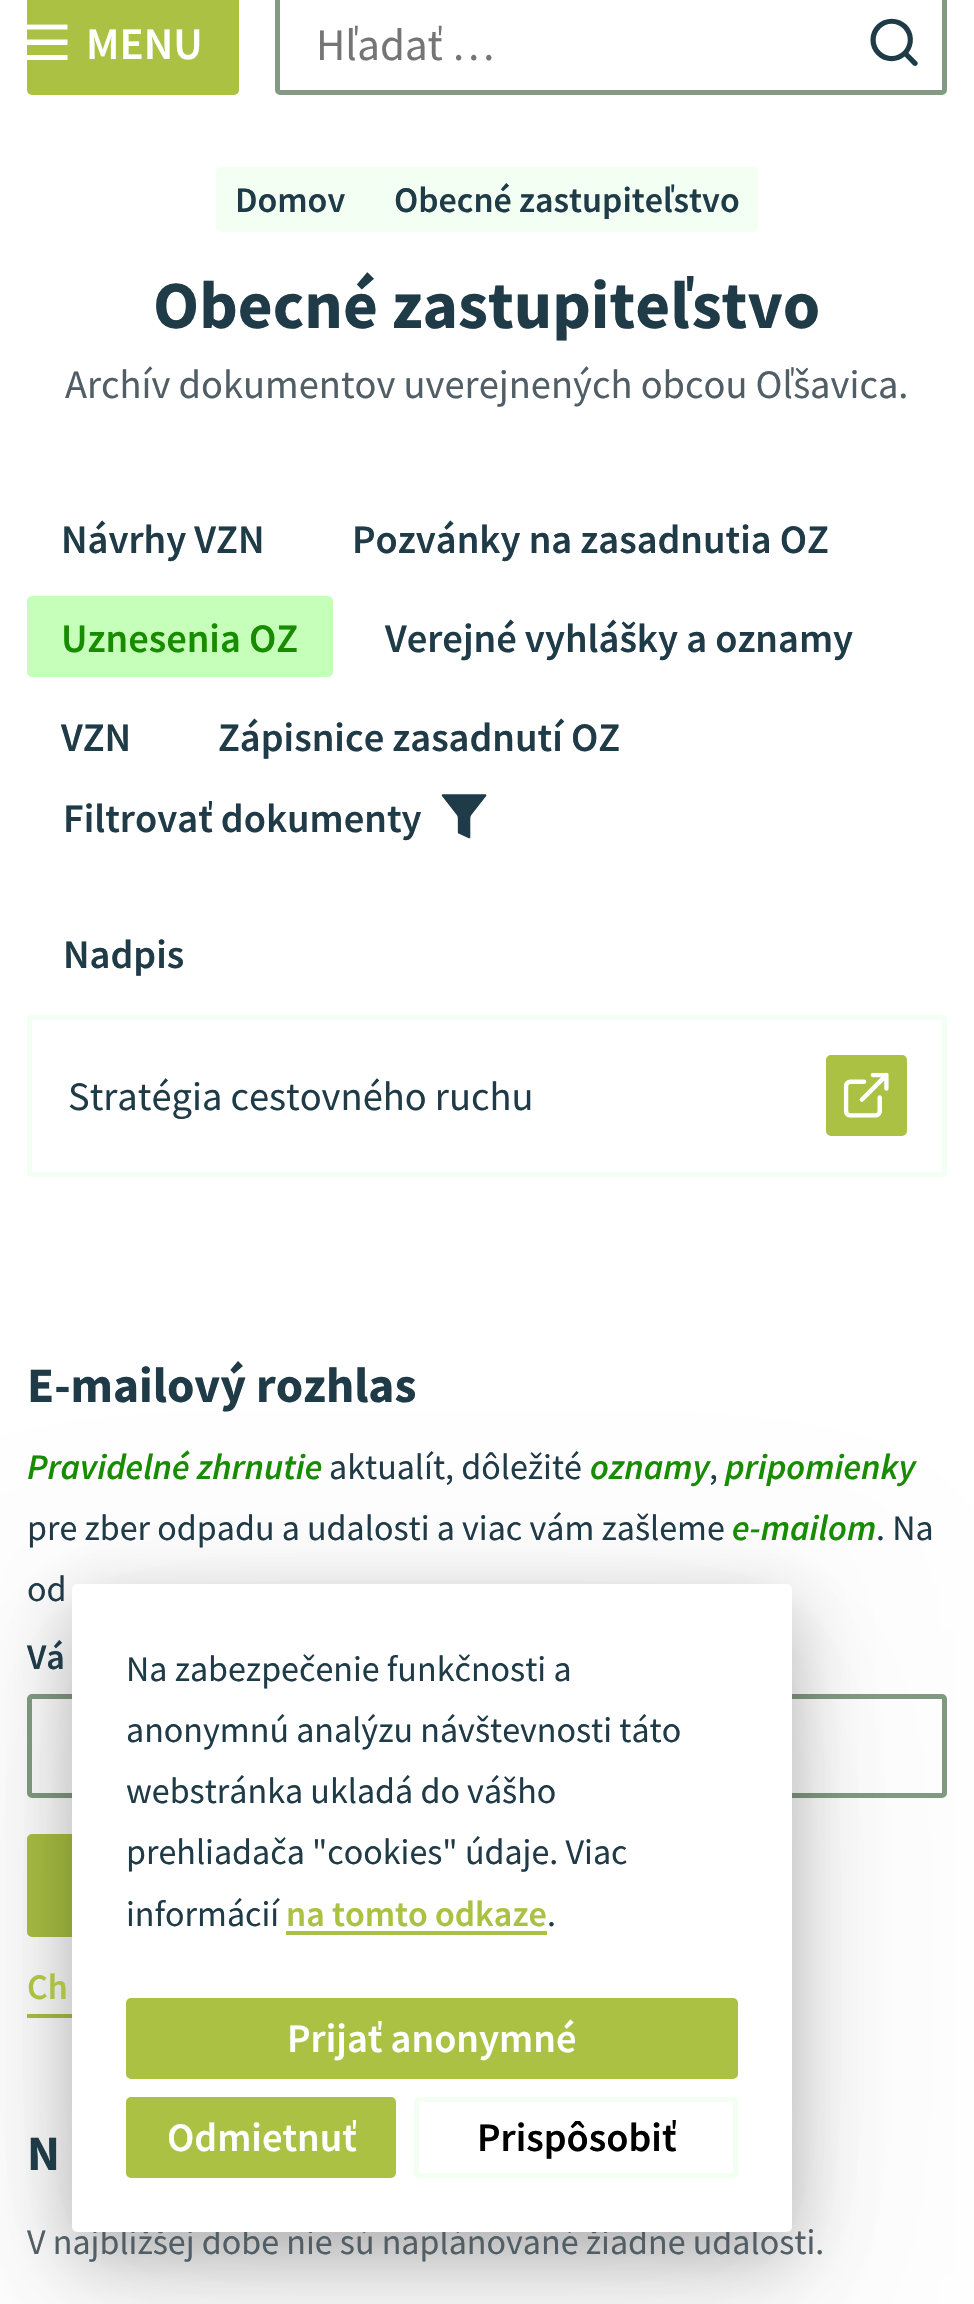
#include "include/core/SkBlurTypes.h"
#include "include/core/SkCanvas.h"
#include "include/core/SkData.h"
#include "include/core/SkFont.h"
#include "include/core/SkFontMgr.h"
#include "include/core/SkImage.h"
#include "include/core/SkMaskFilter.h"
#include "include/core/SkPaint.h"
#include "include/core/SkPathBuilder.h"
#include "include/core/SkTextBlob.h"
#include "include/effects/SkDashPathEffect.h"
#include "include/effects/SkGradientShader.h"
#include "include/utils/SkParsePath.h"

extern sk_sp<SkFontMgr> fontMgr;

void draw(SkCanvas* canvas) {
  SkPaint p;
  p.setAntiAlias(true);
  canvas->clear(SK_ColorWHITE);
  p.setColor(SkColorSetRGB(170, 193, 67));
  canvas->drawRoundRect(SkRect::MakeLTRB(27, -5, 239, 95), 5, 5, p);
  canvas->drawImageRect(SkImages::DeferredFromEncodedData(SkData::MakeFromFileName("images/1.png")), SkRect::MakeLTRB(27, 24, 68, 60), SkSamplingOptions());
  p.setStyle(SkPaint::kStroke_Style);
  p.setStrokeWidth(5);
  p.setColor(SkColorSetRGB(131, 155, 131));
  canvas->drawRoundRect(SkRect::MakeLTRB(277.5f, -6.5f, 944.5f, 92.5f), 2.5f, 2.5f, p);
  canvas->drawImageRect(SkImages::DeferredFromEncodedData(SkData::MakeFromFileName("images/2.png")), SkRect::MakeLTRB(870, 18, 918, 66), SkSamplingOptions());
  p.setStyle(SkPaint::kFill_Style);
  p.setColor(SkColorSetRGB(242, 255, 242));
  canvas->drawRoundRect(SkRect::MakeLTRB(216, 167, 758, 232), 5, 5, p);
  p.setColor(SkColorSetRGB(197, 255, 186));
  canvas->drawRoundRect(SkRect::MakeLTRB(27, 596, 333, 677), 5, 5, p);
  canvas->drawImageRect(SkImages::DeferredFromEncodedData(SkData::MakeFromFileName("images/3.png")), SkRect::MakeLTRB(441, 794, 487, 839), SkSamplingOptions());
  p.setStyle(SkPaint::kStroke_Style);
  p.setColor(SkColorSetRGB(242, 255, 242));
  canvas->drawRoundRect(SkRect::MakeLTRB(29.5f, 1017.5f, 944.5f, 1174.5f), 2.5f, 2.5f, p);
  p.setStyle(SkPaint::kFill_Style);
  p.setColor(SkColorSetRGB(170, 193, 67));
  canvas->drawRoundRect(SkRect::MakeLTRB(828.5f, 1057.5f, 904.5f, 1133.5f), 2.5f, 2.5f, p);
  p.setStyle(SkPaint::kStroke_Style);
  canvas->drawRoundRect(SkRect::MakeLTRB(828.5f, 1057.5f, 904.5f, 1133.5f), 2.5f, 2.5f, p);
  canvas->drawImageRect(SkImages::DeferredFromEncodedData(SkData::MakeFromFileName("images/4.png")), SkRect::MakeLTRB(843, 1072, 889, 1118), SkSamplingOptions());
  p.setColor(SkColorSetRGB(131, 155, 131));
  canvas->drawRoundRect(SkRect::MakeLTRB(29.5f, 1696.5f, 944.5f, 1795.5f), 2.5f, 2.5f, p);
  p.setStyle(SkPaint::kFill_Style);
  p.setColor(SkColorSetRGB(170, 193, 67));
  canvas->drawRoundRect(SkRect::MakeLTRB(29.5f, 1836.5f, 461.5f, 1934.5f), 2.5f, 2.5f, p);
  p.setStyle(SkPaint::kStroke_Style);
  canvas->drawRoundRect(SkRect::MakeLTRB(29.5f, 1836.5f, 461.5f, 1934.5f), 2.5f, 2.5f, p);
  p.setStyle(SkPaint::kFill_Style);
  canvas->drawRect(SkRect::MakeLTRB(27, 2014, 72, 2018), p);
  p.setColor(SkColorSetARGB(13, 0, 0, 0));
  p.setMaskFilter(SkMaskFilter::MakeBlur(kNormal_SkBlurStyle, 101));
  canvas->drawRoundRect(SkRect::MakeLTRB(72, 1652, 792, 2300), 5, 5, p);
  p.setMaskFilter(nullptr);
  p.setMaskFilter(SkMaskFilter::MakeBlur(kNormal_SkBlurStyle, 67.5f));
  canvas->drawRoundRect(SkRect::MakeLTRB(72, 1629, 792, 2277), 5, 5, p);
  p.setMaskFilter(nullptr);
  p.setColor(SkColorSetARGB(64, 0, 0, 0));
  p.setMaskFilter(SkMaskFilter::MakeBlur(kNormal_SkBlurStyle, 34));
  canvas->drawRoundRect(SkRect::MakeLTRB(72, 1607, 792, 2255), 5, 5, p);
  p.setMaskFilter(nullptr);
  SkFont font1(fontMgr->matchFamilyStyle("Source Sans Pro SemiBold", SkFontStyle(600, SkFontStyle::kNormal_Width, SkFontStyle::kUpright_Slant)), 45);
  font1.setSubpixel(true);
  p.setColor(SK_ColorWHITE);
  canvas->drawString("MENU", 86, 59, font1, p);
  SkFont font2(fontMgr->matchFamilyStyle("Source Sans Pro", SkFontStyle::Normal()), 45);
  font2.setSubpixel(true);
  p.setColor(SkColorSetRGB(117, 117, 117));
  canvas->drawString("Hľadať …", 316, 60, font2, p);
  SkFont font3(fontMgr->matchFamilyStyle("Source Sans Pro SemiBold", SkFontStyle(600, SkFontStyle::kNormal_Width, SkFontStyle::kUpright_Slant)), 36);
  font3.setSubpixel(true);
  p.setColor(SkColorSetRGB(32, 59, 72));
  canvas->drawString("Domov", 235, 212, font3, p);
  canvas->drawString("Obecné zastupiteľstvo", 394, 212, font3, p);
  SkFont font4(fontMgr->matchFamilyStyle("Source Sans Pro", SkFontStyle::Bold()), 67.5f);
  font4.setSubpixel(true);
  canvas->drawString("Obecné zastupiteľstvo", 153, 328, font4, p);
  SkFont font5(fontMgr->matchFamilyStyle("Source Sans Pro", SkFontStyle::Normal()), 40.5f);
  font5.setSubpixel(true);
  p.setColor(SkColorSetRGB(81, 94, 101));
  canvas->drawString("Archív dokumentov uverejnených obcou Oľšavica.", 65, 398, font5, p);
  SkFont font6(fontMgr->matchFamilyStyle("Source Sans Pro SemiBold", SkFontStyle(600, SkFontStyle::kNormal_Width, SkFontStyle::kUpright_Slant)), 40.5f);
  font6.setSubpixel(true);
  p.setColor(SkColorSetRGB(32, 59, 72));
  canvas->drawString("Návrhy VZN", 61, 553, font6, p);
  canvas->drawString("Pozvánky na zasadnutia OZ", 352, 553, font6, p);
  p.setColor(SkColorSetRGB(24, 140, 0));
  canvas->drawString("Uznesenia OZ", 61, 652, font6, p);
  p.setColor(SkColorSetRGB(32, 59, 72));
  canvas->drawString("Verejné vyhlášky a oznamy", 385, 652, font6, p);
  canvas->drawString("VZN", 61, 751, font6, p);
  canvas->drawString("Zápisnice zasadnutí OZ", 218, 751, font6, p);
  canvas->drawString("Filtrovať dokumenty", 63, 832, font6, p);
  canvas->drawString("Nadpis", 63, 968, font6, p);
  canvas->drawString("Stratégia cestovného ruchu", 68, 1110, font5, p);
  SkFont font7(fontMgr->matchFamilyStyle("Source Sans Pro", SkFontStyle::Bold()), 49.5f);
  font7.setSubpixel(true);
  canvas->drawString("E-mailový rozhlas", 27, 1402, font7, p);
  SkFont font8(fontMgr->matchFamilyStyle("Source Sans Pro SemiBold", SkFontStyle(600, SkFontStyle::kNormal_Width, SkFontStyle::kItalic_Slant)), 36);
  font8.setSubpixel(true);
  p.setColor(SkColorSetRGB(24, 140, 0));
  canvas->drawString("Pravidelné zhrnutie", 27, 1479, font8, p);
  SkFont font9(fontMgr->matchFamilyStyle("Source Sans Pro", SkFontStyle::Normal()), 36);
  font9.setSubpixel(true);
  p.setColor(SkColorSetRGB(32, 59, 72));
  canvas->drawString("aktualít, dôležité", 329, 1479, font9, p);
  p.setColor(SkColorSetRGB(24, 140, 0));
  canvas->drawString("oznamy", 590, 1479, font8, p);
  p.setColor(SkColorSetRGB(32, 59, 72));
  canvas->drawString(",", 709, 1479, font9, p);
  p.setColor(SkColorSetRGB(24, 140, 0));
  canvas->drawString("pripomienky", 725, 1479, font8, p);
  p.setColor(SkColorSetRGB(32, 59, 72));
  canvas->drawString("pre zber odpadu a udalosti a viac vám zašleme", 27, 1540, font9, p);
  p.setColor(SkColorSetRGB(24, 140, 0));
  canvas->drawString("e-mailom", 732, 1540, font8, p);
  p.setColor(SkColorSetRGB(32, 59, 72));
  canvas->drawString(". Na", 876, 1540, font9, p);
  canvas->drawString("od", 27, 1601, font9, p);
  canvas->drawString("Vá", 27, 1669, font3, p);
  p.setColor(SkColorSetRGB(170, 193, 67));
  canvas->drawString("Ch", 27, 1999, font3, p);
  p.setColor(SkColorSetRGB(32, 59, 72));
  canvas->drawString("N", 27, 2170, font7, p);
  p.setColor(SkColorSetRGB(81, 94, 101));
  canvas->drawString("V najbližšej dobe nie sú naplánované žiadne udalosti.", 27, 2254, font9, p);
  p.setColor(SK_ColorWHITE);
  canvas->drawRoundRect(SkRect::MakeLTRB(72, 1584, 792, 2232), 5, 5, p);
  p.setColor(SkColorSetRGB(32, 59, 72));
  canvas->drawString("Na zabezpečenie funkčnosti a", 126, 1681, font9, p);
  canvas->drawString("anonymnú analýzu návštevnosti táto", 126, 1742, font9, p);
  canvas->drawString("webstránka ukladá do vášho", 126, 1803, font9, p);
  canvas->drawString("prehliadača \"cookies\" údaje. Viac", 126, 1864, font9, p);
  canvas->drawString("informácií", 126, 1926, font9, p);
  p.setColor(SkColorSetRGB(170, 193, 67));
  canvas->drawString("na tomto odkaze", 286, 1926, font3, p);
  canvas->drawRect(SkRect::MakeLTRB(286, 1931, 547, 1935), p);
  p.setColor(SkColorSetRGB(32, 59, 72));
  canvas->drawString(".", 547, 1926, font9, p);
  p.setColor(SkColorSetRGB(170, 193, 67));
  canvas->drawRoundRect(SkRect::MakeLTRB(128.5f, 2000.5f, 735.5f, 2076.5f), 2.5f, 2.5f, p);
  p.setStyle(SkPaint::kStroke_Style);
  canvas->drawRoundRect(SkRect::MakeLTRB(128.5f, 2000.5f, 735.5f, 2076.5f), 2.5f, 2.5f, p);
  p.setStyle(SkPaint::kFill_Style);
  p.setColor(SK_ColorWHITE);
  canvas->drawString("Prijať anonymné", 287, 2052, font6, p);
  p.setColor(SkColorSetRGB(170, 193, 67));
  canvas->drawRoundRect(SkRect::MakeLTRB(128.5f, 2099.5f, 393.5f, 2175.5f), 2.5f, 2.5f, p);
  p.setStyle(SkPaint::kStroke_Style);
  canvas->drawRoundRect(SkRect::MakeLTRB(128.5f, 2099.5f, 393.5f, 2175.5f), 2.5f, 2.5f, p);
  p.setStyle(SkPaint::kFill_Style);
  p.setColor(SK_ColorWHITE);
  canvas->drawString("Odmietnuť", 167, 2151, font6, p);
  p.setStyle(SkPaint::kStroke_Style);
  p.setColor(SkColorSetRGB(242, 255, 242));
  canvas->drawRoundRect(SkRect::MakeLTRB(416.5f, 2099.5f, 735.5f, 2175.5f), 2.5f, 2.5f, p);
  p.setStyle(SkPaint::kFill_Style);
  p.setColor(SK_ColorBLACK);
  canvas->drawString("Prispôsobiť", 477, 2151, font6, p);
}
